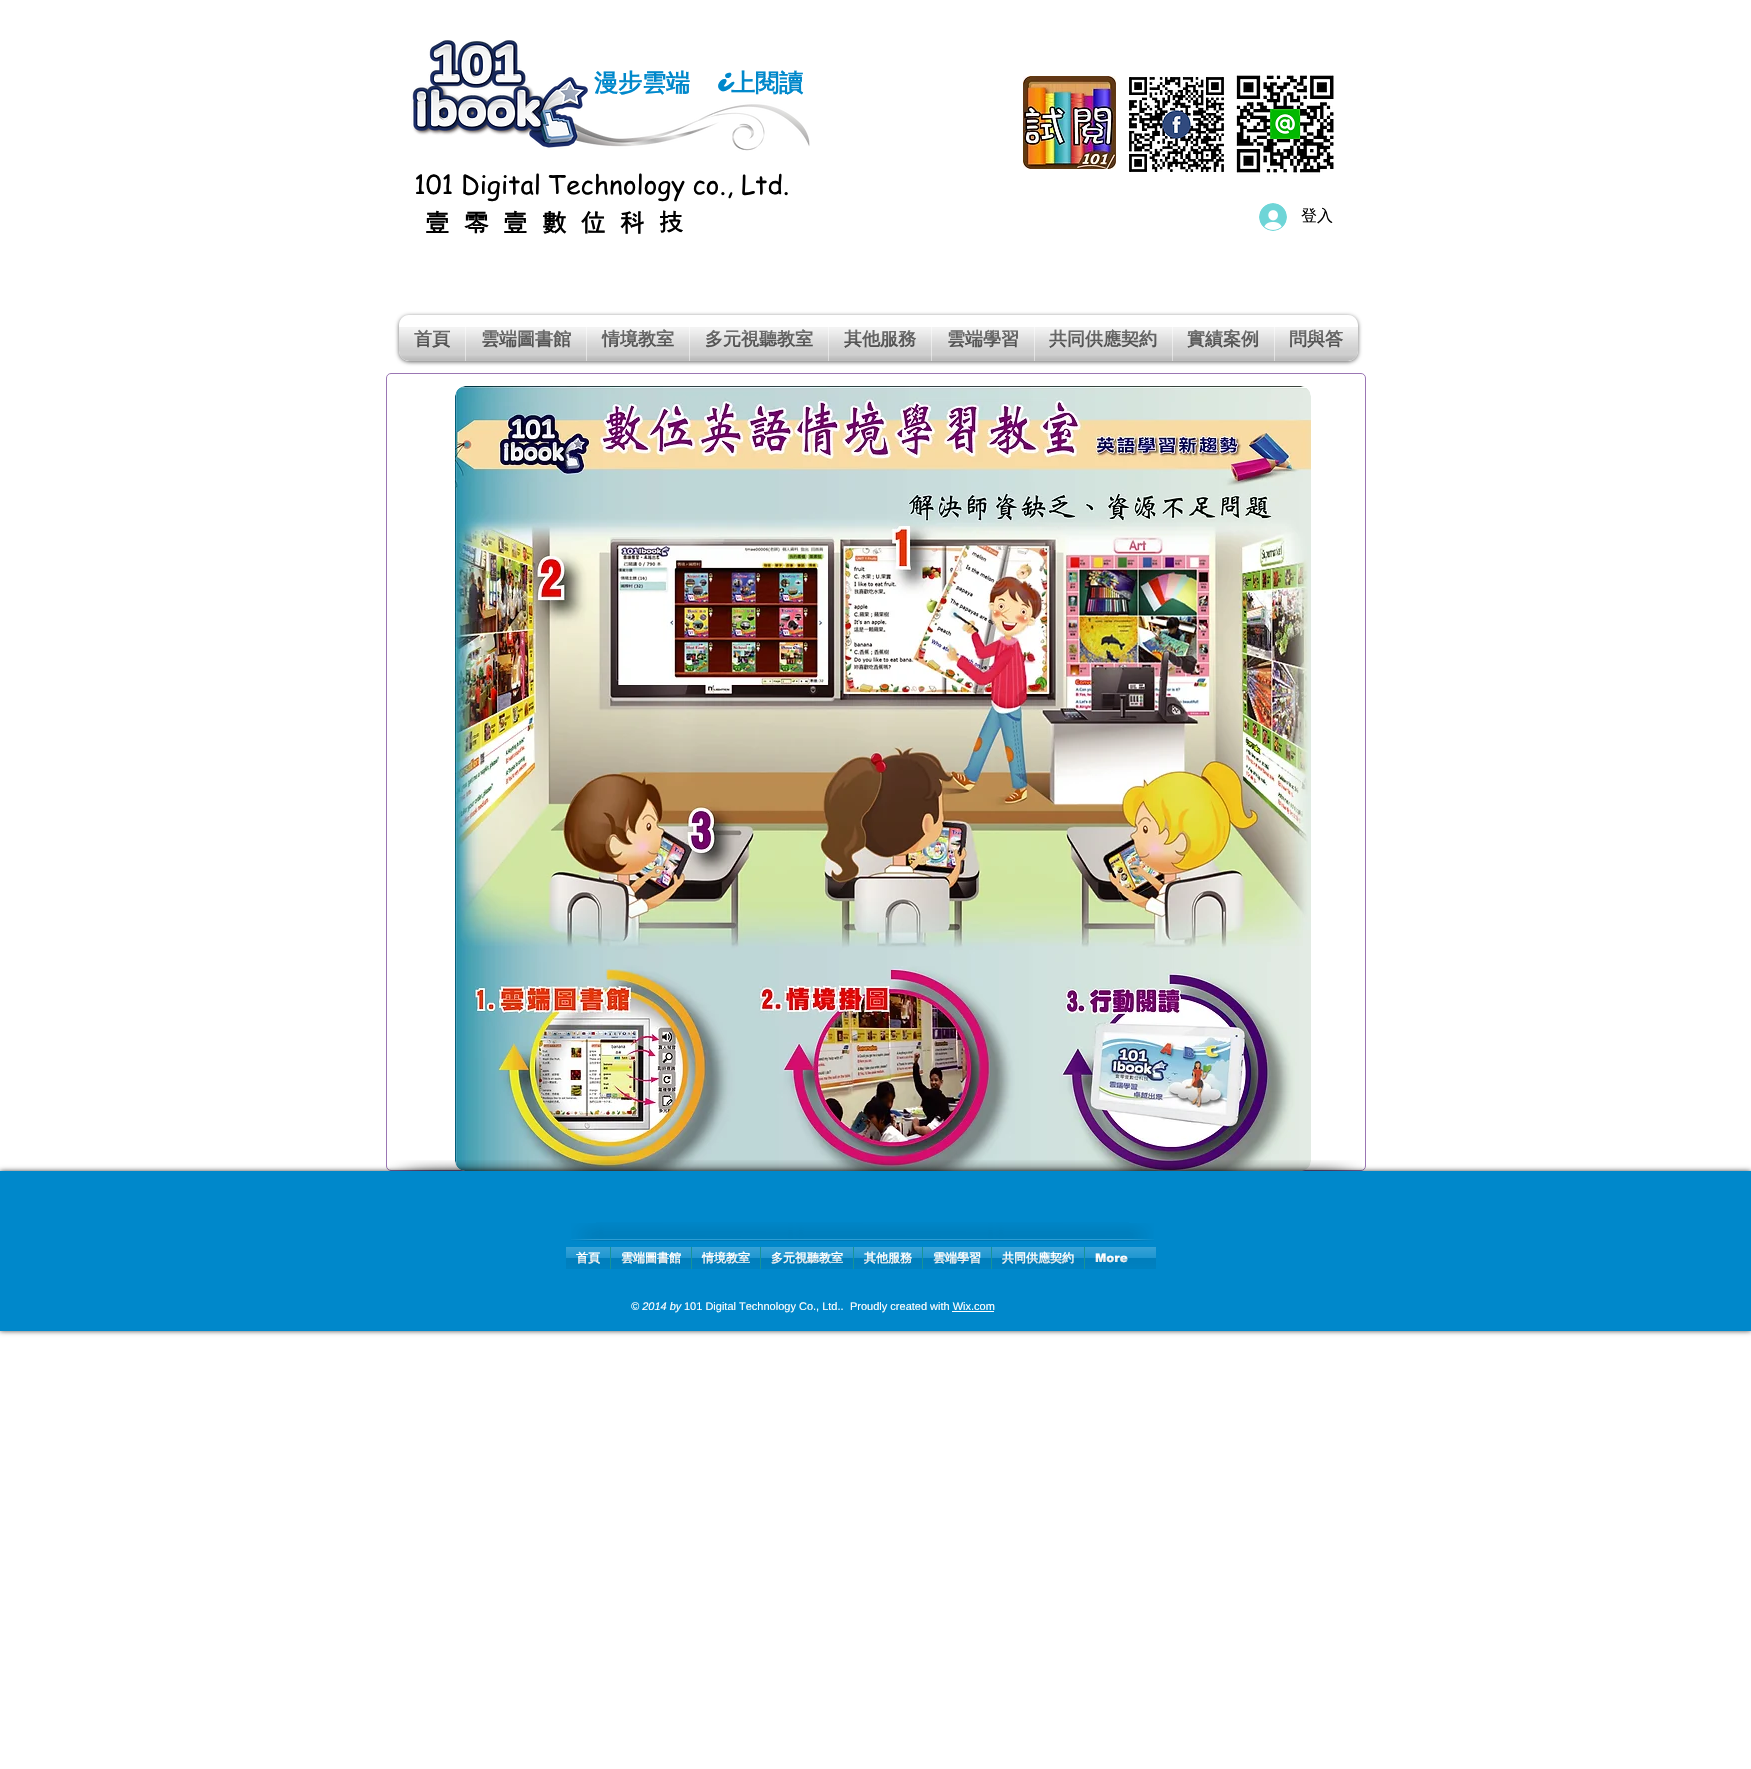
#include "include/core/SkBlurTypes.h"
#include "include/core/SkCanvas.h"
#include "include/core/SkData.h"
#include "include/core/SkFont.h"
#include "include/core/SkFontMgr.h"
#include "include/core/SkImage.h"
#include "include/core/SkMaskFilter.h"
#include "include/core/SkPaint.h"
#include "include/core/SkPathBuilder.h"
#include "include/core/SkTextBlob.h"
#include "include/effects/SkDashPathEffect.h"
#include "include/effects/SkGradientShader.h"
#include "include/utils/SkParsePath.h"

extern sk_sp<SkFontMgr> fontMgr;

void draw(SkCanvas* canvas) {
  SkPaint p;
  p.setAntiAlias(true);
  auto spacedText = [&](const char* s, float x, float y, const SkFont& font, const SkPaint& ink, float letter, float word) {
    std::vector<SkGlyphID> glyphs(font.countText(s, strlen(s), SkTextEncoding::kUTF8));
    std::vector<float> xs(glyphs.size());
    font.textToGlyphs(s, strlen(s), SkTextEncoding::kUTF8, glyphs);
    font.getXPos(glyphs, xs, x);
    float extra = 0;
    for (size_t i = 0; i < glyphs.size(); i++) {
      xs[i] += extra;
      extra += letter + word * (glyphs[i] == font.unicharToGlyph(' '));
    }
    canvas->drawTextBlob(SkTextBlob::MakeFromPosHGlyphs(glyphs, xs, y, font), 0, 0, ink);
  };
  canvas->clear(SK_ColorWHITE);
  canvas->drawImageRect(SkImages::DeferredFromEncodedData(SkData::MakeFromFileName("images/1.png")), SkRect::MakeLTRB(411, 40, 810, 151), SkSamplingOptions());
  canvas->drawImageRect(SkImages::DeferredFromEncodedData(SkData::MakeFromFileName("images/2.png")), SkRect::MakeLTRB(1023, 76, 1116, 169), SkSamplingOptions());
  canvas->drawImageRect(SkImages::DeferredFromEncodedData(SkData::MakeFromFileName("images/3.png")), SkRect::MakeLTRB(1129, 77, 1224, 172), SkSamplingOptions());
  canvas->drawImageRect(SkImages::DeferredFromEncodedData(SkData::MakeFromFileName("images/4.png")), SkRect::MakeLTRB(1236, 75, 1334, 175), SkSamplingOptions());
  canvas->drawImageRect(SkImages::DeferredFromEncodedData(SkData::MakeFromFileName("images/5.png")), SkRect::MakeLTRB(1259, 203, 1287, 231), SkSamplingOptions());
  canvas->save();
  canvas->clipPath(SkPathBuilder(SkPathFillType::kEvenOdd).moveTo(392, 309).lineTo(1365, 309).lineTo(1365, 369).lineTo(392, 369).close().moveTo(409, 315).lineTo(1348, 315).cubicTo(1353.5f, 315, 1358, 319.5f, 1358, 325).lineTo(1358, 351).cubicTo(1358, 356.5f, 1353.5f, 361, 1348, 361).lineTo(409, 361).cubicTo(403.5f, 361, 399, 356.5f, 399, 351).lineTo(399, 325).cubicTo(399, 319.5f, 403.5f, 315, 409, 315).close().detach(), true);
  p.setColor(SkColorSetARGB(153, 0, 0, 0));
  p.setMaskFilter(SkMaskFilter::MakeBlur(kNormal_SkBlurStyle, 2));
  canvas->drawRoundRect(SkRect::MakeLTRB(399, 316, 1358, 362), 10, 10, p);
  p.setMaskFilter(nullptr);
  canvas->restore();
  canvas->drawImageRect(SkImages::DeferredFromEncodedData(SkData::MakeFromFileName("images/6.png")), SkRect::MakeLTRB(401, 315, 1356, 319), SkSamplingOptions());
  canvas->drawImageRect(SkImages::DeferredFromEncodedData(SkData::MakeFromFileName("images/7.png")), SkRect::MakeLTRB(399, 327, 1358, 361), SkSamplingOptions());
  p.setStyle(SkPaint::kStroke_Style);
  p.setStrokeWidth(1);
  p.setColor(SkColorSetRGB(155, 118, 180));
  canvas->drawRoundRect(SkRect::MakeLTRB(386.5f, 373.5f, 1365.5f, 1170.5f), 4.5f, 4.5f, p);
  p.setStyle(SkPaint::kFill_Style);
  p.setColor(SK_ColorWHITE);
  canvas->drawRoundRect(SkRect::MakeLTRB(455, 386, 1311, 1171), 10, 10, p);
  canvas->drawImageRect(SkImages::DeferredFromEncodedData(SkData::MakeFromFileName("images/26.png")), SkRect::MakeLTRB(455, 386, 1311, 1171), SkSamplingOptions());
  p.setColor(SkColorSetARGB(179, 0, 0, 0));
  p.setMaskFilter(SkMaskFilter::MakeBlur(kNormal_SkBlurStyle, 2.5f));
  canvas->drawRect(SkRect::MakeLTRB(0, 1171, 1751, 1331), p);
  p.setMaskFilter(nullptr);
  p.setColor(SkColorSetRGB(0, 136, 203));
  canvas->drawRect(SkRect::MakeLTRB(0, 1171, 1751, 1331), p);
  canvas->drawImageRect(SkImages::DeferredFromEncodedData(SkData::MakeFromFileName("images/27.png")), SkRect::MakeLTRB(390, 1160, 486, 1171), SkSamplingOptions());
  canvas->drawImageRect(SkImages::DeferredFromEncodedData(SkData::MakeFromFileName("images/28.png")), SkRect::MakeLTRB(486, 1160, 1266, 1171), SkSamplingOptions());
  canvas->drawImageRect(SkImages::DeferredFromEncodedData(SkData::MakeFromFileName("images/29.png")), SkRect::MakeLTRB(1266, 1160, 1362, 1171), SkSamplingOptions());
  canvas->drawImageRect(SkImages::DeferredFromEncodedData(SkData::MakeFromFileName("images/30.png")), SkRect::MakeLTRB(571, 1223, 596, 1241), SkSamplingOptions());
  canvas->drawImageRect(SkImages::DeferredFromEncodedData(SkData::MakeFromFileName("images/31.png")), SkRect::MakeLTRB(596, 1222, 1129, 1241), SkSamplingOptions());
  canvas->drawImageRect(SkImages::DeferredFromEncodedData(SkData::MakeFromFileName("images/32.png")), SkRect::MakeLTRB(1129, 1223, 1154, 1241), SkSamplingOptions());
  canvas->drawImageRect(SkImages::DeferredFromEncodedData(SkData::MakeFromFileName("images/33.png")), SkRect::MakeLTRB(1138, 1247, 1156, 1269), SkSamplingOptions());
  p.setColor(SkColorSetRGB(24, 147, 149));
  canvas->drawRect(SkRect::MakeLTRB(610, 1247, 611, 1269), p);
  canvas->drawRect(SkRect::MakeLTRB(691, 1247, 692, 1269), p);
  canvas->drawRect(SkRect::MakeLTRB(760, 1247, 761, 1269), p);
  canvas->drawRect(SkRect::MakeLTRB(853, 1247, 854, 1269), p);
  canvas->drawRect(SkRect::MakeLTRB(922, 1247, 923, 1269), p);
  canvas->drawRect(SkRect::MakeLTRB(991, 1247, 992, 1269), p);
  canvas->drawRect(SkRect::MakeLTRB(1084, 1247, 1085, 1269), p);
  p.setColor(SK_ColorWHITE);
  canvas->drawRect(SkRect::MakeLTRB(952, 1311, 994, 1312), p);
  SkFont font1(fontMgr->matchFamilyStyle("WenQuanYi Zen Hei", SkFontStyle::Bold()), 24);
  font1.setSubpixel(true);
  p.setColor(SkColorSetRGB(0, 136, 203));
  canvas->drawString("漫步雲端", 594, 91, font1, p);
  SkFont font2(fontMgr->matchFamilyStyle("Sarina", SkFontStyle::Bold()), 24);
  font2.setSubpixel(true);
  canvas->drawString("i", 719, 91, font2, p);
  canvas->drawString("上閱讀", 731, 91, font1, p);
  SkFont font3(fontMgr->matchFamilyStyle("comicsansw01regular", SkFontStyle::Normal()), 26);
  font3.setSubpixel(true);
  p.setColor(SK_ColorBLACK);
  canvas->drawString("101 Digital Technology co., Ltd.", 414, 194, font3, p);
  SkFont font4(fontMgr->matchFamilyStyle("Dotum", SkFontStyle::Bold()), 26);
  font4.setSubpixel(true);
  spacedText("壹零壹數位科技", 424, 232, font4, p, 13, 0);
  SkFont font5(fontMgr->matchFamilyStyle("WenQuanYi Zen Hei", SkFontStyle(500, SkFontStyle::kNormal_Width, SkFontStyle::kUpright_Slant)), 16);
  font5.setSubpixel(true);
  canvas->drawString("登入", 1301, 221, font5, p);
  SkFont font6(fontMgr->matchFamilyStyle("WenQuanYi Zen Hei", SkFontStyle::Bold()), 18);
  font6.setSubpixel(true);
  p.setColor(SkColorSetRGB(68, 68, 68));
  canvas->drawString("首頁", 414, 345, font6, p);
  canvas->drawImageRect(SkImages::DeferredFromEncodedData(SkData::MakeFromFileName("images/8.png")), SkRect::MakeLTRB(413, 330, 449, 348), SkSamplingOptions());
  canvas->drawImageRect(SkImages::DeferredFromEncodedData(SkData::MakeFromFileName("images/9.png")), SkRect::MakeLTRB(399, 327, 465, 361), SkSamplingOptions());
  canvas->drawString("雲端圖書館", 481, 345, font6, p);
  canvas->drawImageRect(SkImages::DeferredFromEncodedData(SkData::MakeFromFileName("images/10.png")), SkRect::MakeLTRB(481, 330, 570, 348), SkSamplingOptions());
  canvas->drawImageRect(SkImages::DeferredFromEncodedData(SkData::MakeFromFileName("images/11.png")), SkRect::MakeLTRB(466, 327, 586, 361), SkSamplingOptions());
  canvas->drawString("情境教室", 602, 345, font6, p);
  canvas->drawImageRect(SkImages::DeferredFromEncodedData(SkData::MakeFromFileName("images/12.png")), SkRect::MakeLTRB(601, 329, 673, 348), SkSamplingOptions());
  canvas->drawImageRect(SkImages::DeferredFromEncodedData(SkData::MakeFromFileName("images/13.png")), SkRect::MakeLTRB(587, 327, 689, 361), SkSamplingOptions());
  canvas->drawString("多元視聽教室", 705, 345, font6, p);
  canvas->drawImageRect(SkImages::DeferredFromEncodedData(SkData::MakeFromFileName("images/14.png")), SkRect::MakeLTRB(705, 329, 812, 348), SkSamplingOptions());
  canvas->drawImageRect(SkImages::DeferredFromEncodedData(SkData::MakeFromFileName("images/15.png")), SkRect::MakeLTRB(690, 327, 828, 361), SkSamplingOptions());
  canvas->drawString("其他服務", 844, 345, font6, p);
  canvas->drawImageRect(SkImages::DeferredFromEncodedData(SkData::MakeFromFileName("images/16.png")), SkRect::MakeLTRB(843, 330, 915, 348), SkSamplingOptions());
  canvas->drawImageRect(SkImages::DeferredFromEncodedData(SkData::MakeFromFileName("images/17.png")), SkRect::MakeLTRB(829, 327, 931, 361), SkSamplingOptions());
  canvas->drawString("雲端學習", 947, 345, font6, p);
  canvas->drawImageRect(SkImages::DeferredFromEncodedData(SkData::MakeFromFileName("images/18.png")), SkRect::MakeLTRB(947, 330, 1017, 348), SkSamplingOptions());
  canvas->drawImageRect(SkImages::DeferredFromEncodedData(SkData::MakeFromFileName("images/19.png")), SkRect::MakeLTRB(932, 327, 1034, 361), SkSamplingOptions());
  canvas->drawString("共同供應契約", 1049, 345, font6, p);
  canvas->drawImageRect(SkImages::DeferredFromEncodedData(SkData::MakeFromFileName("images/20.png")), SkRect::MakeLTRB(1049, 330, 1156, 348), SkSamplingOptions());
  canvas->drawImageRect(SkImages::DeferredFromEncodedData(SkData::MakeFromFileName("images/21.png")), SkRect::MakeLTRB(1035, 327, 1172, 361), SkSamplingOptions());
  canvas->drawString("實績案例", 1187, 345, font6, p);
  canvas->drawImageRect(SkImages::DeferredFromEncodedData(SkData::MakeFromFileName("images/22.png")), SkRect::MakeLTRB(1187, 329, 1258, 348), SkSamplingOptions());
  canvas->drawImageRect(SkImages::DeferredFromEncodedData(SkData::MakeFromFileName("images/23.png")), SkRect::MakeLTRB(1173, 327, 1274, 361), SkSamplingOptions());
  canvas->drawString("問與答", 1289, 345, font6, p);
  canvas->drawImageRect(SkImages::DeferredFromEncodedData(SkData::MakeFromFileName("images/24.png")), SkRect::MakeLTRB(1290, 330, 1343, 348), SkSamplingOptions());
  canvas->drawImageRect(SkImages::DeferredFromEncodedData(SkData::MakeFromFileName("images/25.png")), SkRect::MakeLTRB(1275, 327, 1358, 361), SkSamplingOptions());
  SkFont font7(fontMgr->matchFamilyStyle("WenQuanYi Zen Hei", SkFontStyle::Bold()), 12);
  font7.setSubpixel(true);
  p.setColor(SK_ColorWHITE);
  canvas->drawString("首頁", 576, 1262, font7, p);
  canvas->drawImageRect(SkImages::DeferredFromEncodedData(SkData::MakeFromFileName("images/34.png")), SkRect::MakeLTRB(566, 1247, 610, 1269), SkSamplingOptions());
  canvas->drawString("雲端圖書館", 621, 1262, font7, p);
  canvas->drawImageRect(SkImages::DeferredFromEncodedData(SkData::MakeFromFileName("images/35.png")), SkRect::MakeLTRB(611, 1247, 691, 1269), SkSamplingOptions());
  canvas->drawString("情境教室", 702, 1262, font7, p);
  canvas->drawImageRect(SkImages::DeferredFromEncodedData(SkData::MakeFromFileName("images/36.png")), SkRect::MakeLTRB(692, 1247, 760, 1269), SkSamplingOptions());
  canvas->drawString("多元視聽教室", 771, 1262, font7, p);
  canvas->drawImageRect(SkImages::DeferredFromEncodedData(SkData::MakeFromFileName("images/37.png")), SkRect::MakeLTRB(761, 1247, 853, 1269), SkSamplingOptions());
  canvas->drawString("其他服務", 864, 1262, font7, p);
  canvas->drawImageRect(SkImages::DeferredFromEncodedData(SkData::MakeFromFileName("images/38.png")), SkRect::MakeLTRB(854, 1247, 922, 1269), SkSamplingOptions());
  canvas->drawString("雲端學習", 933, 1262, font7, p);
  canvas->drawImageRect(SkImages::DeferredFromEncodedData(SkData::MakeFromFileName("images/39.png")), SkRect::MakeLTRB(923, 1247, 991, 1269), SkSamplingOptions());
  canvas->drawString("共同供應契約", 1002, 1262, font7, p);
  canvas->drawImageRect(SkImages::DeferredFromEncodedData(SkData::MakeFromFileName("images/40.png")), SkRect::MakeLTRB(992, 1247, 1084, 1269), SkSamplingOptions());
  SkFont font8(fontMgr->matchFamilyStyle("arial", SkFontStyle(900, SkFontStyle::kNormal_Width, SkFontStyle::kUpright_Slant)), 12);
  font8.setSubpixel(true);
  canvas->drawString("More", 1095, 1262, font8, p);
  canvas->drawImageRect(SkImages::DeferredFromEncodedData(SkData::MakeFromFileName("images/41.png")), SkRect::MakeLTRB(1085, 1247, 1138, 1269), SkSamplingOptions());
  SkFont font9(fontMgr->matchFamilyStyle("Liberation Sans", SkFontStyle::Italic()), 11);
  font9.setSubpixel(true);
  canvas->drawString("© 2014 by", 631, 1310, font9, p);
  SkFont font10(fontMgr->matchFamilyStyle("Liberation Sans", SkFontStyle::Normal()), 11);
  font10.setSubpixel(true);
  canvas->drawString("101 Digital Technology Co., Ltd..", 684, 1310, font10, p);
  canvas->drawString("Proudly created with Wix.com", 850, 1310, font10, p);
}
